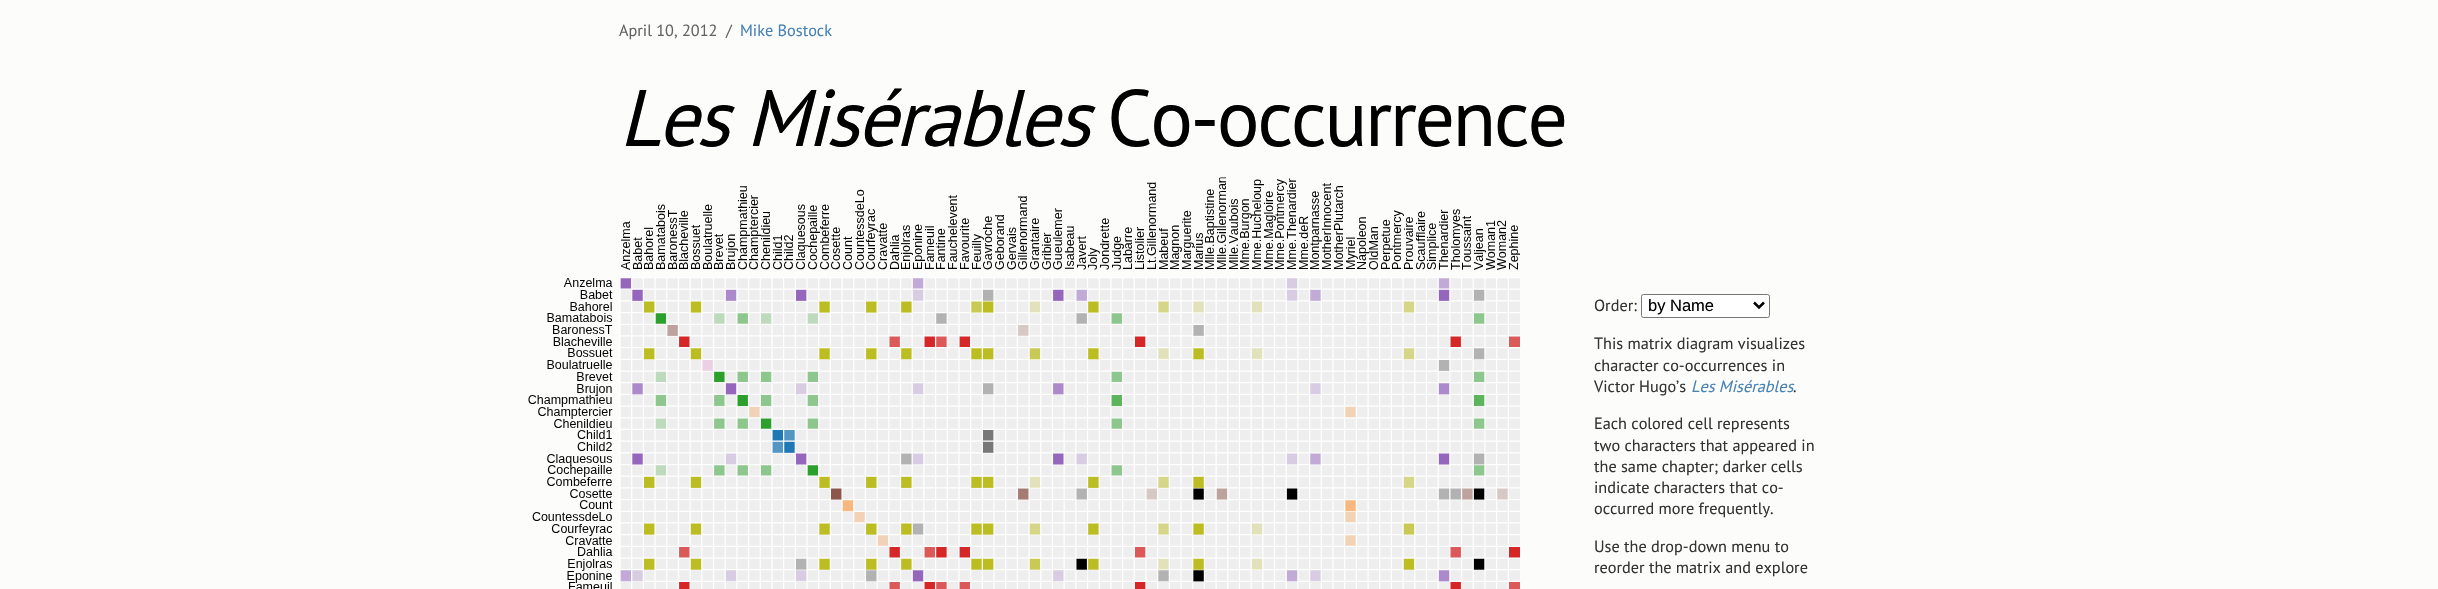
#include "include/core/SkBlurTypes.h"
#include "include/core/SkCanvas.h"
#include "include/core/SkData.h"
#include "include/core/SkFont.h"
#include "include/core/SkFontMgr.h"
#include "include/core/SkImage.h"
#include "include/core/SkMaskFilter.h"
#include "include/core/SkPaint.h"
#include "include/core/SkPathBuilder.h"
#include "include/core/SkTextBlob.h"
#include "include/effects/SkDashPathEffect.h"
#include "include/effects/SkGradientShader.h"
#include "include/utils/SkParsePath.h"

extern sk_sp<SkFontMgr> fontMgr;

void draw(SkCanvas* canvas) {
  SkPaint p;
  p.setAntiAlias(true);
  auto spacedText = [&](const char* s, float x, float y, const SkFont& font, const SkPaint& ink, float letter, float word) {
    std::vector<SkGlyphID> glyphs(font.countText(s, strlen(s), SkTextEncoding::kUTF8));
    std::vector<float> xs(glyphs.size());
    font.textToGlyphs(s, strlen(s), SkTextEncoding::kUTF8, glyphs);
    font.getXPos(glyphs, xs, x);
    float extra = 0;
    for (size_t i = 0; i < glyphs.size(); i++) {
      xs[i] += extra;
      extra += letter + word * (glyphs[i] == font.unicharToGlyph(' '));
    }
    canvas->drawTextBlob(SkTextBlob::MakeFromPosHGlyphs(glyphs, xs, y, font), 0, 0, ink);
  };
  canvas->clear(SkColorSetRGB(252, 252, 250));
  canvas->drawImageRect(SkImages::DeferredFromEncodedData(SkData::MakeFromFileName("images/1.png")), SkRect::MakeLTRB(528, 177, 1520, 589), SkSamplingOptions());
  p.setColor(SK_ColorWHITE);
  canvas->drawRoundRect(SkRect::MakeLTRB(1641.5f, 294.5f, 1769.5f, 317.5f), 2, 2, p);
  p.setStyle(SkPaint::kStroke_Style);
  p.setStrokeWidth(1);
  p.setColor(SkColorSetRGB(118, 118, 118));
  canvas->drawRoundRect(SkRect::MakeLTRB(1641.5f, 294.5f, 1769.5f, 317.5f), 2, 2, p);
  p.setStrokeWidth(2.5f);
  p.setColor(SK_ColorBLACK);
  canvas->drawPath(SkPathBuilder().moveTo(1754, 302.5f).lineTo(1759, 307.5f).lineTo(1764, 302.5f).detach(), p);
  SkFont font1(fontMgr->matchFamilyStyle("PT Sans", SkFontStyle::Normal()), 16.25f);
  font1.setSubpixel(true);
  p.setStyle(SkPaint::kFill_Style);
  p.setColor(SkColorSetRGB(99, 99, 99));
  canvas->drawString("April 10, 2012", 619, 36, font1, p);
  canvas->drawString("/", 726, 36, font1, p);
  p.setColor(SkColorSetRGB(70, 130, 180));
  canvas->drawString("Mike Bostock", 740, 36, font1, p);
  SkFont font2(fontMgr->matchFamilyStyle("PT Sans", SkFontStyle::Italic()), 80);
  font2.setSubpixel(true);
  p.setColor(SK_ColorBLACK);
  spacedText("Les Misérables", 619, 146, font2, p, -2.5f, 0);
  SkFont font3(fontMgr->matchFamilyStyle("PT Sans", SkFontStyle::Normal()), 80);
  font3.setSubpixel(true);
  spacedText("Co-occurrence", 1107, 146, font3, p, -2.5f, 0);
  p.setColor(SkColorSetRGB(51, 51, 51));
  canvas->drawString("Order:", 1594, 311, font1, p);
  SkFont font4(fontMgr->matchFamilyStyle("Liberation Sans", SkFontStyle::Normal()), 16.5f);
  font4.setSubpixel(true);
  p.setColor(SK_ColorBLACK);
  canvas->drawString("by Name", 1648, 311, font4, p);
  p.setColor(SkColorSetRGB(51, 51, 51));
  canvas->drawString("This matrix diagram visualizes", 1594, 349, font1, p);
  canvas->drawString("character co-occurrences in", 1594, 371, font1, p);
  canvas->drawString("Victor Hugo’s", 1594, 392, font1, p);
  SkFont font5(fontMgr->matchFamilyStyle("PT Sans", SkFontStyle::Italic()), 16.25f);
  font5.setSubpixel(true);
  p.setColor(SkColorSetRGB(70, 130, 180));
  canvas->drawString("Les Misérables", 1691, 392, font5, p);
  p.setColor(SkColorSetRGB(51, 51, 51));
  canvas->drawString(".", 1793, 392, font1, p);
  canvas->drawString("Each colored cell represents", 1594, 429, font1, p);
  canvas->drawString("two characters that appeared in", 1594, 451, font1, p);
  canvas->drawString("the same chapter; darker cells", 1594, 472, font1, p);
  canvas->drawString("indicate characters that co-", 1594, 493, font1, p);
  canvas->drawString("occurred more frequently.", 1594, 514, font1, p);
  canvas->drawString("Use the drop-down menu to", 1594, 552, font1, p);
  canvas->drawString("reorder the matrix and explore", 1594, 573, font1, p);
}
